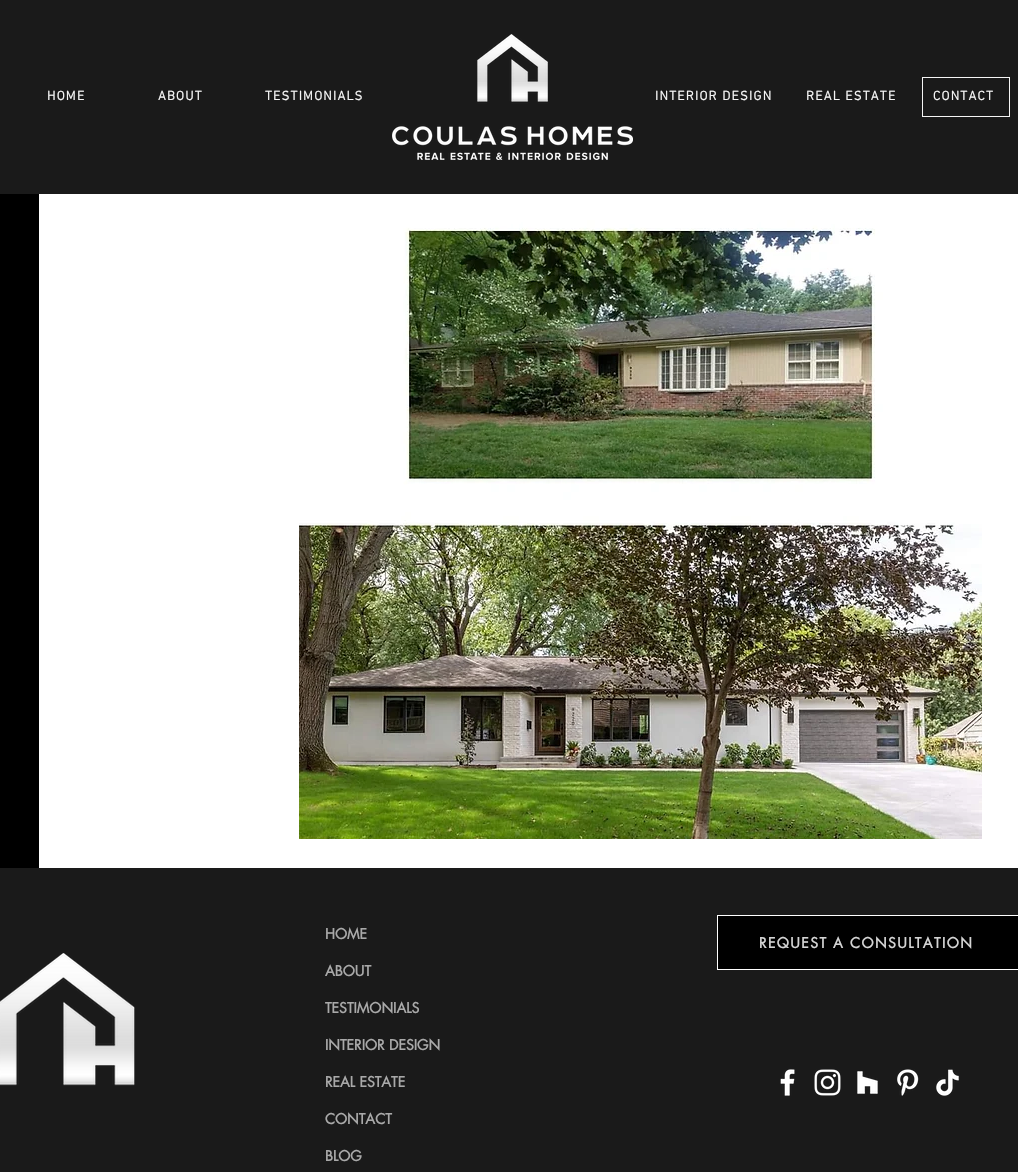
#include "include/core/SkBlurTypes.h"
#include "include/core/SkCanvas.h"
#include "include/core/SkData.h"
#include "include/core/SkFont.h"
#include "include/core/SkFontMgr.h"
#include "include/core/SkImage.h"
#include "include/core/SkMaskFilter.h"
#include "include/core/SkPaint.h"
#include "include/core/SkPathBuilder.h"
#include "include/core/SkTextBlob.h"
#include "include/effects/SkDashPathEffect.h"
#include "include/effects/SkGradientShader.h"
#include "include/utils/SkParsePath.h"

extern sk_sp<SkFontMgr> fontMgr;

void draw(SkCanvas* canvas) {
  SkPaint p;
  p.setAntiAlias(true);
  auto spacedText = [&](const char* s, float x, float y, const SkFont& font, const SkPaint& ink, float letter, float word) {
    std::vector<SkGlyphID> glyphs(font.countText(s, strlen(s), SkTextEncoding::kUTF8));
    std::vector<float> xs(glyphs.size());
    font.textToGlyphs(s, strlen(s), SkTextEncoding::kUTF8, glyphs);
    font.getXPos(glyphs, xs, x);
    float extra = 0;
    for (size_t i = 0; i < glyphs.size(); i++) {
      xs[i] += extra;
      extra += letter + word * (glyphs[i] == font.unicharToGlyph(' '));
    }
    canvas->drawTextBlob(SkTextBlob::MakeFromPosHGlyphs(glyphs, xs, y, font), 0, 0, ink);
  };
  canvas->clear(SK_ColorWHITE);
  p.setColor(SkColorSetRGB(26, 26, 26));
  canvas->drawRect(SkRect::MakeLTRB(0, 0, 1018, 194), p);
  canvas->drawImageRect(SkImages::DeferredFromEncodedData(SkData::MakeFromFileName("images/1.png")), SkRect::MakeLTRB(392, 34, 633, 160), SkSamplingOptions());
  p.setStyle(SkPaint::kStroke_Style);
  p.setStrokeWidth(1);
  p.setColor(SkColorSetRGB(245, 245, 245));
  canvas->drawRect(SkRect::MakeLTRB(922.5f, 77.5f, 1009.5f, 116.5f), p);
  p.setStyle(SkPaint::kFill_Style);
  p.setColor(SK_ColorBLACK);
  canvas->drawRect(SkRect::MakeLTRB(0, 194, 39, 868), p);
  canvas->drawImageRect(SkImages::DeferredFromEncodedData(SkData::MakeFromFileName("images/2.png")), SkRect::MakeLTRB(299, 212, 982, 839), SkSamplingOptions());
  p.setColor(SkColorSetRGB(26, 26, 26));
  canvas->drawRect(SkRect::MakeLTRB(0, 868, 1018, 1172), p);
  p.setColor(SK_ColorBLACK);
  canvas->drawRect(SkRect::MakeLTRB(717.5f, 915.5f, 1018.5f, 969.5f), p);
  p.setStyle(SkPaint::kStroke_Style);
  p.setColor(SK_ColorWHITE);
  canvas->drawRect(SkRect::MakeLTRB(717.5f, 915.5f, 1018.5f, 969.5f), p);
  canvas->drawImageRect(SkImages::DeferredFromEncodedData(SkData::MakeFromFileName("images/3.png")), SkRect::MakeLTRB(0, 953, 135, 1086), SkSamplingOptions());
  canvas->drawImageRect(SkImages::DeferredFromEncodedData(SkData::MakeFromFileName("images/4.png")), SkRect::MakeLTRB(780, 1069, 795, 1096), SkSamplingOptions());
  canvas->drawImageRect(SkImages::DeferredFromEncodedData(SkData::MakeFromFileName("images/5.png")), SkRect::MakeLTRB(814, 1069, 841, 1096), SkSamplingOptions());
  canvas->drawImageRect(SkImages::DeferredFromEncodedData(SkData::MakeFromFileName("images/6.png")), SkRect::MakeLTRB(857, 1071, 878, 1094), SkSamplingOptions());
  canvas->drawImageRect(SkImages::DeferredFromEncodedData(SkData::MakeFromFileName("images/7.png")), SkRect::MakeLTRB(897, 1069, 919, 1096), SkSamplingOptions());
  canvas->drawImageRect(SkImages::DeferredFromEncodedData(SkData::MakeFromFileName("images/8.png")), SkRect::MakeLTRB(936, 1069, 959, 1096), SkSamplingOptions());
  SkFont font1(fontMgr->matchFamilyStyle("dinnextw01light", SkFontStyle::Bold()), 13);
  font1.setSubpixel(true);
  p.setStyle(SkPaint::kFill_Style);
  p.setColor(SkColorSetRGB(245, 245, 245));
  spacedText("HOME", 47, 100, font1, p, 1.25f, 0);
  spacedText("ABOUT", 158, 100, font1, p, 1.25f, 0);
  spacedText("TESTIMONIALS", 265, 100, font1, p, 1.25f, 0);
  spacedText("INTERIOR DESIGN", 655, 100, font1, p, 1.25f, 0);
  spacedText("REAL ESTATE", 806, 100, font1, p, 1.25f, 0);
  spacedText("CONTACT", 933, 100, font1, p, 1.25f, 0);
  SkFont font2(fontMgr->matchFamilyStyle("futura", SkFontStyle::Bold()), 14);
  font2.setSubpixel(true);
  p.setColor(SkColorSetRGB(169, 169, 169));
  canvas->drawString("HOME", 325, 939, font2, p);
  canvas->drawString("ABOUT", 325, 976, font2, p);
  canvas->drawString("TESTIMONIALS", 325, 1013, font2, p);
  canvas->drawString("INTERIOR DESIGN", 325, 1050, font2, p);
  canvas->drawString("REAL ESTATE", 325, 1087, font2, p);
  canvas->drawString("CONTACT", 325, 1124, font2, p);
  canvas->drawString("BLOG", 325, 1161, font2, p);
  p.setColor(SkColorSetRGB(212, 212, 212));
  spacedText("REQUEST A CONSULTATION", 759, 948, font2, p, 1.4f, 0);
}
